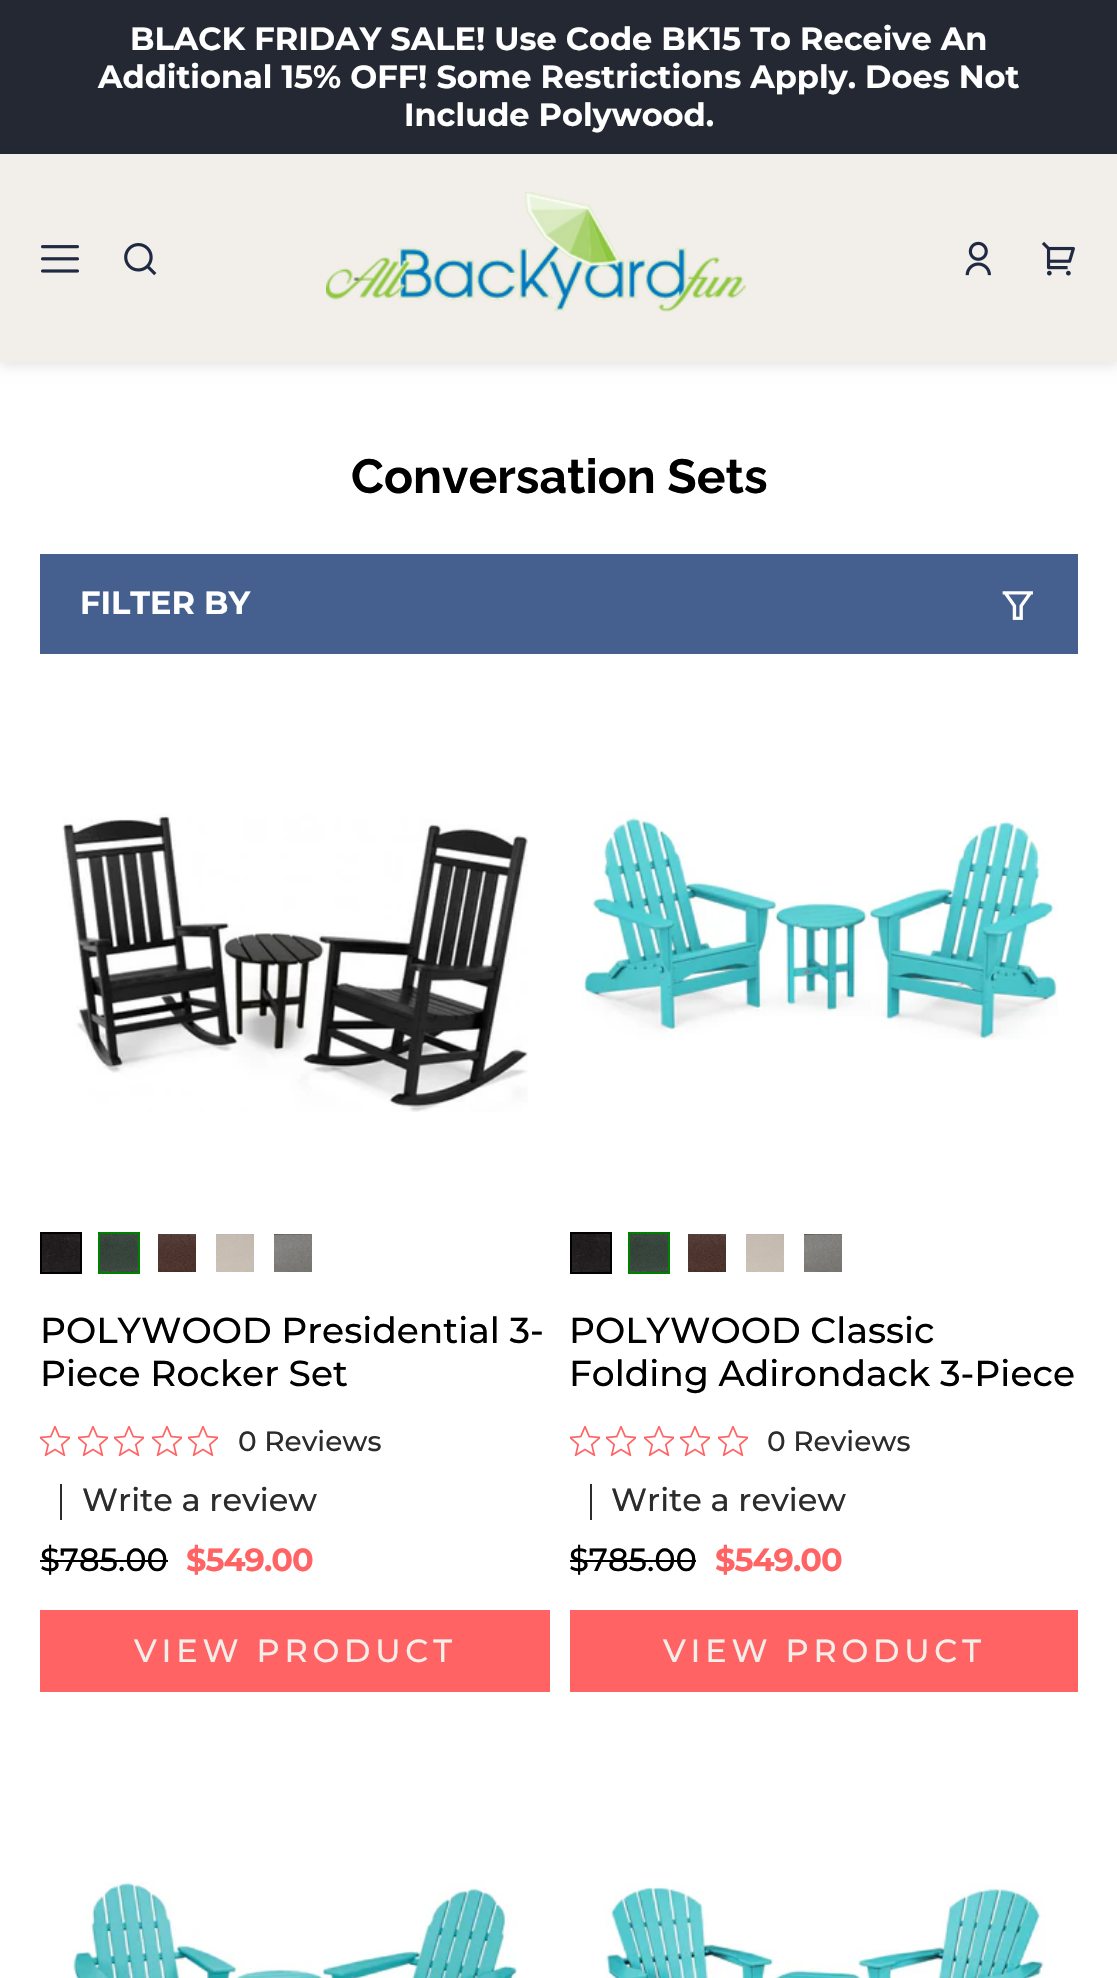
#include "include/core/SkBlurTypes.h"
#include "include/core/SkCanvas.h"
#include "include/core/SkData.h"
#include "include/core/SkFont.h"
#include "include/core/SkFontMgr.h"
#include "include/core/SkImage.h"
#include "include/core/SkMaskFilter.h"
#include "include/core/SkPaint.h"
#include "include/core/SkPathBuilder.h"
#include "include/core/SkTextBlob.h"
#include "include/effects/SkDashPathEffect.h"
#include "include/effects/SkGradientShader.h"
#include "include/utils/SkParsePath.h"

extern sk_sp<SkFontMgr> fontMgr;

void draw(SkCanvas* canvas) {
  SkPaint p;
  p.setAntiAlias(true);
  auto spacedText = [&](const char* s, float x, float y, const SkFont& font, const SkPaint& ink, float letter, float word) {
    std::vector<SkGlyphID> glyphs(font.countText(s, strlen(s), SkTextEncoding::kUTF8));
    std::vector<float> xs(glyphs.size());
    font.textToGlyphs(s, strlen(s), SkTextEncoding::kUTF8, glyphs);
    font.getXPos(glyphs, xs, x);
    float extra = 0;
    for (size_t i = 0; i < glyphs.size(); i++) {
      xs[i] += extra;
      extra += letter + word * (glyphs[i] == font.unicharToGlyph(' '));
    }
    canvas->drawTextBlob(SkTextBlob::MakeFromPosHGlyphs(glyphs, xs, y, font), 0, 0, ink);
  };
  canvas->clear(SK_ColorWHITE);
  p.setColor(SkColorSetARGB(26, 0, 0, 0));
  p.setMaskFilter(SkMaskFilter::MakeBlur(kNormal_SkBlurStyle, 6));
  canvas->drawRect(SkRect::MakeLTRB(0, 158, 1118, 366), p);
  p.setMaskFilter(nullptr);
  p.setColor(SkColorSetRGB(36, 40, 51));
  canvas->drawRect(SkRect::MakeLTRB(0, 0, 1117, 154), p);
  p.setColor(SkColorSetRGB(242, 238, 234));
  canvas->drawRect(SkRect::MakeLTRB(0, 154, 1117, 362), p);
  canvas->drawImageRect(SkImages::DeferredFromEncodedData(SkData::MakeFromFileName("images/1.png")), SkRect::MakeLTRB(41, 245, 79, 273), SkSamplingOptions());
  canvas->drawImageRect(SkImages::DeferredFromEncodedData(SkData::MakeFromFileName("images/2.png")), SkRect::MakeLTRB(124, 243, 157, 276), SkSamplingOptions());
  canvas->drawImageRect(SkImages::DeferredFromEncodedData(SkData::MakeFromFileName("images/3.png")), SkRect::MakeLTRB(326, 192, 746, 312), SkSamplingOptions());
  canvas->drawImageRect(SkImages::DeferredFromEncodedData(SkData::MakeFromFileName("images/4.png")), SkRect::MakeLTRB(965, 241, 991, 276), SkSamplingOptions());
  canvas->drawImageRect(SkImages::DeferredFromEncodedData(SkData::MakeFromFileName("images/5.png")), SkRect::MakeLTRB(1041, 241, 1075, 276), SkSamplingOptions());
  p.setColor(SkColorSetRGB(69, 96, 143));
  canvas->drawRect(SkRect::MakeLTRB(40, 554, 1078, 654), p);
  canvas->drawImageRect(SkImages::DeferredFromEncodedData(SkData::MakeFromFileName("images/6.png")), SkRect::MakeLTRB(1002, 591, 1033, 620), SkSamplingOptions());
  canvas->drawImageRect(SkImages::DeferredFromEncodedData(SkData::MakeFromFileName("images/7.png")), SkRect::MakeLTRB(62, 813, 528, 1112), SkSamplingOptions());
  p.setColor(SK_ColorBLACK);
  canvas->drawRect(SkRect::MakeLTRB(40, 1232, 82, 1274), p);
  canvas->drawImageRect(SkImages::DeferredFromEncodedData(SkData::MakeFromFileName("images/8.png")), SkRect::MakeLTRB(42, 1234, 80, 1272), SkSamplingOptions());
  p.setColor(SkColorSetRGB(0, 128, 0));
  canvas->drawRect(SkRect::MakeLTRB(98, 1232, 140, 1274), p);
  canvas->drawImageRect(SkImages::DeferredFromEncodedData(SkData::MakeFromFileName("images/9.png")), SkRect::MakeLTRB(100, 1234, 138, 1272), SkSamplingOptions());
  canvas->drawImageRect(SkImages::DeferredFromEncodedData(SkData::MakeFromFileName("images/10.png")), SkRect::MakeLTRB(158, 1234, 196, 1272), SkSamplingOptions());
  canvas->drawImageRect(SkImages::DeferredFromEncodedData(SkData::MakeFromFileName("images/11.png")), SkRect::MakeLTRB(216, 1234, 254, 1272), SkSamplingOptions());
  canvas->drawImageRect(SkImages::DeferredFromEncodedData(SkData::MakeFromFileName("images/12.png")), SkRect::MakeLTRB(274, 1234, 312, 1272), SkSamplingOptions());
  canvas->drawImageRect(SkImages::DeferredFromEncodedData(SkData::MakeFromFileName("images/13.png")), SkRect::MakeLTRB(40, 1426, 70, 1456), SkSamplingOptions());
  canvas->drawImageRect(SkImages::DeferredFromEncodedData(SkData::MakeFromFileName("images/13.png")), SkRect::MakeLTRB(78, 1426, 108, 1456), SkSamplingOptions());
  canvas->drawImageRect(SkImages::DeferredFromEncodedData(SkData::MakeFromFileName("images/13.png")), SkRect::MakeLTRB(114, 1426, 144, 1456), SkSamplingOptions());
  canvas->drawImageRect(SkImages::DeferredFromEncodedData(SkData::MakeFromFileName("images/13.png")), SkRect::MakeLTRB(152, 1426, 182, 1456), SkSamplingOptions());
  canvas->drawImageRect(SkImages::DeferredFromEncodedData(SkData::MakeFromFileName("images/13.png")), SkRect::MakeLTRB(188, 1426, 218, 1456), SkSamplingOptions());
  p.setColor(SkColorSetRGB(44, 44, 44));
  canvas->drawRect(SkRect::MakeLTRB(60, 1484, 62, 1520), p);
  p.setColor(SK_ColorBLACK);
  canvas->drawRect(SkRect::MakeLTRB(40, 1560, 168, 1562), p);
  p.setColor(SkColorSetRGB(255, 99, 99));
  canvas->drawRect(SkRect::MakeLTRB(40, 1610, 550, 1692), p);
  canvas->drawImageRect(SkImages::DeferredFromEncodedData(SkData::MakeFromFileName("images/14.png")), SkRect::MakeLTRB(581, 812, 1058, 1040), SkSamplingOptions());
  p.setColor(SK_ColorBLACK);
  canvas->drawRect(SkRect::MakeLTRB(570, 1232, 612, 1274), p);
  canvas->drawImageRect(SkImages::DeferredFromEncodedData(SkData::MakeFromFileName("images/15.png")), SkRect::MakeLTRB(572, 1234, 610, 1272), SkSamplingOptions());
  p.setColor(SkColorSetRGB(0, 128, 0));
  canvas->drawRect(SkRect::MakeLTRB(628, 1232, 670, 1274), p);
  canvas->drawImageRect(SkImages::DeferredFromEncodedData(SkData::MakeFromFileName("images/9.png")), SkRect::MakeLTRB(630, 1234, 668, 1272), SkSamplingOptions());
  canvas->drawImageRect(SkImages::DeferredFromEncodedData(SkData::MakeFromFileName("images/10.png")), SkRect::MakeLTRB(688, 1234, 726, 1272), SkSamplingOptions());
  canvas->drawImageRect(SkImages::DeferredFromEncodedData(SkData::MakeFromFileName("images/16.png")), SkRect::MakeLTRB(746, 1234, 784, 1272), SkSamplingOptions());
  canvas->drawImageRect(SkImages::DeferredFromEncodedData(SkData::MakeFromFileName("images/17.png")), SkRect::MakeLTRB(804, 1234, 842, 1272), SkSamplingOptions());
  canvas->drawImageRect(SkImages::DeferredFromEncodedData(SkData::MakeFromFileName("images/13.png")), SkRect::MakeLTRB(570, 1426, 600, 1456), SkSamplingOptions());
  canvas->drawImageRect(SkImages::DeferredFromEncodedData(SkData::MakeFromFileName("images/13.png")), SkRect::MakeLTRB(606, 1426, 636, 1456), SkSamplingOptions());
  canvas->drawImageRect(SkImages::DeferredFromEncodedData(SkData::MakeFromFileName("images/13.png")), SkRect::MakeLTRB(644, 1426, 674, 1456), SkSamplingOptions());
  canvas->drawImageRect(SkImages::DeferredFromEncodedData(SkData::MakeFromFileName("images/13.png")), SkRect::MakeLTRB(680, 1426, 710, 1456), SkSamplingOptions());
  canvas->drawImageRect(SkImages::DeferredFromEncodedData(SkData::MakeFromFileName("images/13.png")), SkRect::MakeLTRB(718, 1426, 748, 1456), SkSamplingOptions());
  p.setColor(SkColorSetRGB(44, 44, 44));
  canvas->drawRect(SkRect::MakeLTRB(590, 1484, 592, 1520), p);
  p.setColor(SK_ColorBLACK);
  canvas->drawRect(SkRect::MakeLTRB(570, 1560, 696, 1562), p);
  p.setColor(SkColorSetRGB(255, 99, 99));
  canvas->drawRect(SkRect::MakeLTRB(570, 1610, 1078, 1692), p);
  canvas->drawImageRect(SkImages::DeferredFromEncodedData(SkData::MakeFromFileName("images/18.png")), SkRect::MakeLTRB(72, 1881, 518, 1978), SkSamplingOptions());
  canvas->drawImageRect(SkImages::DeferredFromEncodedData(SkData::MakeFromFileName("images/19.png")), SkRect::MakeLTRB(605, 1883, 1046, 1978), SkSamplingOptions());
  SkFont font1(fontMgr->matchFamilyStyle("Montserrat", SkFontStyle::Bold()), 32);
  font1.setSubpixel(true);
  p.setColor(SK_ColorWHITE);
  canvas->drawString("BLACK FRIDAY SALE! Use Code BK15 To Receive An", 130, 50, font1, p);
  canvas->drawString("Additional 15% OFF! Some Restrictions Apply. Does Not", 98, 88, font1, p);
  canvas->drawString("Include Polywood.", 404, 126, font1, p);
  SkFont font2(fontMgr->matchFamilyStyle("Raleway", SkFontStyle::Bold()), 48);
  font2.setSubpixel(true);
  p.setColor(SK_ColorBLACK);
  canvas->drawString("Conversation Sets", 351, 493, font2, p);
  p.setColor(SK_ColorWHITE);
  canvas->drawString("FILTER BY", 80, 614, font1, p);
  SkFont font3(fontMgr->matchFamilyStyle("Montserrat", SkFontStyle(100, SkFontStyle::kNormal_Width, SkFontStyle::kUpright_Slant)), 36);
  font3.setSubpixel(true);
  p.setColor(SK_ColorBLACK);
  canvas->drawString("POLYWOOD Presidential 3-", 40, 1343, font3, p);
  canvas->drawString("Piece Rocker Set", 40, 1386, font3, p);
  SkFont font4(fontMgr->matchFamilyStyle("Montserrat", SkFontStyle(100, SkFontStyle::kNormal_Width, SkFontStyle::kUpright_Slant)), 28);
  font4.setSubpixel(true);
  p.setColor(SkColorSetRGB(44, 44, 44));
  canvas->drawString("0 Reviews", 238, 1451, font4, p);
  SkFont font5(fontMgr->matchFamilyStyle("Montserrat", SkFontStyle(100, SkFontStyle::kNormal_Width, SkFontStyle::kUpright_Slant)), 32);
  font5.setSubpixel(true);
  canvas->drawString("Write a review", 82, 1511, font5, p);
  p.setColor(SK_ColorBLACK);
  canvas->drawString("$785.00", 40, 1571, font5, p);
  p.setColor(SkColorSetRGB(255, 99, 99));
  spacedText("$549.00", 186, 1571, font1, p, -1, 0);
  p.setColor(SkColorSetRGB(242, 238, 234));
  spacedText("VIEW PRODUCT", 134, 1662, font5, p, 4.75f, 0);
  p.setColor(SK_ColorBLACK);
  canvas->drawString("POLYWOOD Classic", 569, 1343, font3, p);
  canvas->drawString("Folding Adirondack 3-Piece", 569, 1386, font3, p);
  p.setColor(SkColorSetRGB(44, 44, 44));
  canvas->drawString("0 Reviews", 767, 1451, font4, p);
  canvas->drawString("Write a review", 611, 1511, font5, p);
  p.setColor(SK_ColorBLACK);
  canvas->drawString("$785.00", 569, 1571, font5, p);
  p.setColor(SkColorSetRGB(255, 99, 99));
  spacedText("$549.00", 715, 1571, font1, p, -1, 0);
  p.setColor(SkColorSetRGB(242, 238, 234));
  spacedText("VIEW PRODUCT", 663, 1662, font5, p, 4.75f, 0);
}
